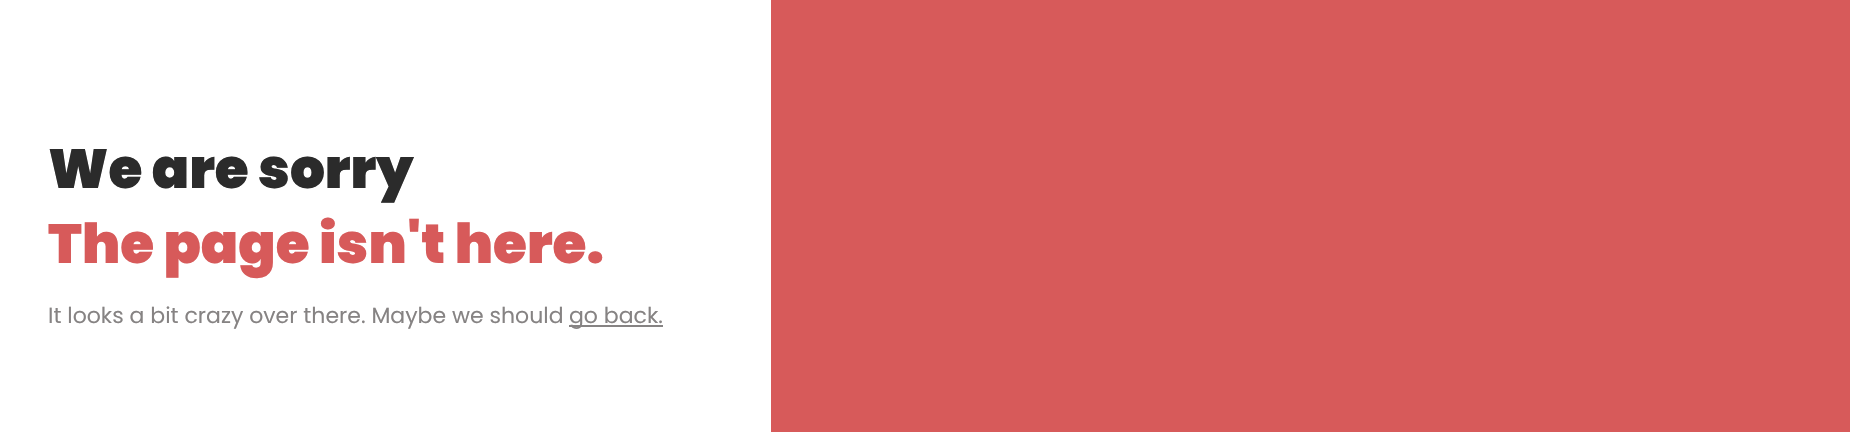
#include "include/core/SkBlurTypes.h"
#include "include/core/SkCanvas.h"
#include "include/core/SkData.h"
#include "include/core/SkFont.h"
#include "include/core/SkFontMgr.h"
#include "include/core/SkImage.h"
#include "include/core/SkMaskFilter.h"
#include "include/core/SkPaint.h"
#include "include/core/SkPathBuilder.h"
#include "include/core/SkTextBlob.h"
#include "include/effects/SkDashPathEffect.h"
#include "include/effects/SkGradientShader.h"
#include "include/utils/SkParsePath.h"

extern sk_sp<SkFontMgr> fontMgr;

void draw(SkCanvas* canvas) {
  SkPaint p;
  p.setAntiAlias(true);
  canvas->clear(SK_ColorWHITE);
  p.setColor(SkColorSetRGB(134, 131, 131));
  canvas->drawRect(SkRect::MakeLTRB(569, 325, 663, 327), p);
  p.setColor(SkColorSetRGB(215, 90, 90));
  canvas->drawRect(SkRect::MakeLTRB(771, 0, 1850, 432), p);
  SkFont font1(fontMgr->matchFamilyStyle("Poppins", SkFontStyle(900, SkFontStyle::kNormal_Width, SkFontStyle::kUpright_Slant)), 55);
  font1.setSubpixel(true);
  p.setColor(SkColorSetRGB(43, 43, 43));
  canvas->drawString("We are sorry", 48, 188, font1, p);
  p.setColor(SkColorSetRGB(215, 90, 90));
  canvas->drawString("The page isn't here.", 48, 263, font1, p);
  SkFont font2(fontMgr->matchFamilyStyle("Poppins", SkFontStyle::Normal()), 22);
  font2.setSubpixel(true);
  p.setColor(SkColorSetRGB(134, 131, 131));
  canvas->drawString("It looks a bit crazy over there. Maybe we should", 48, 323, font2, p);
  canvas->drawString("go back.", 569, 323, font2, p);
}
